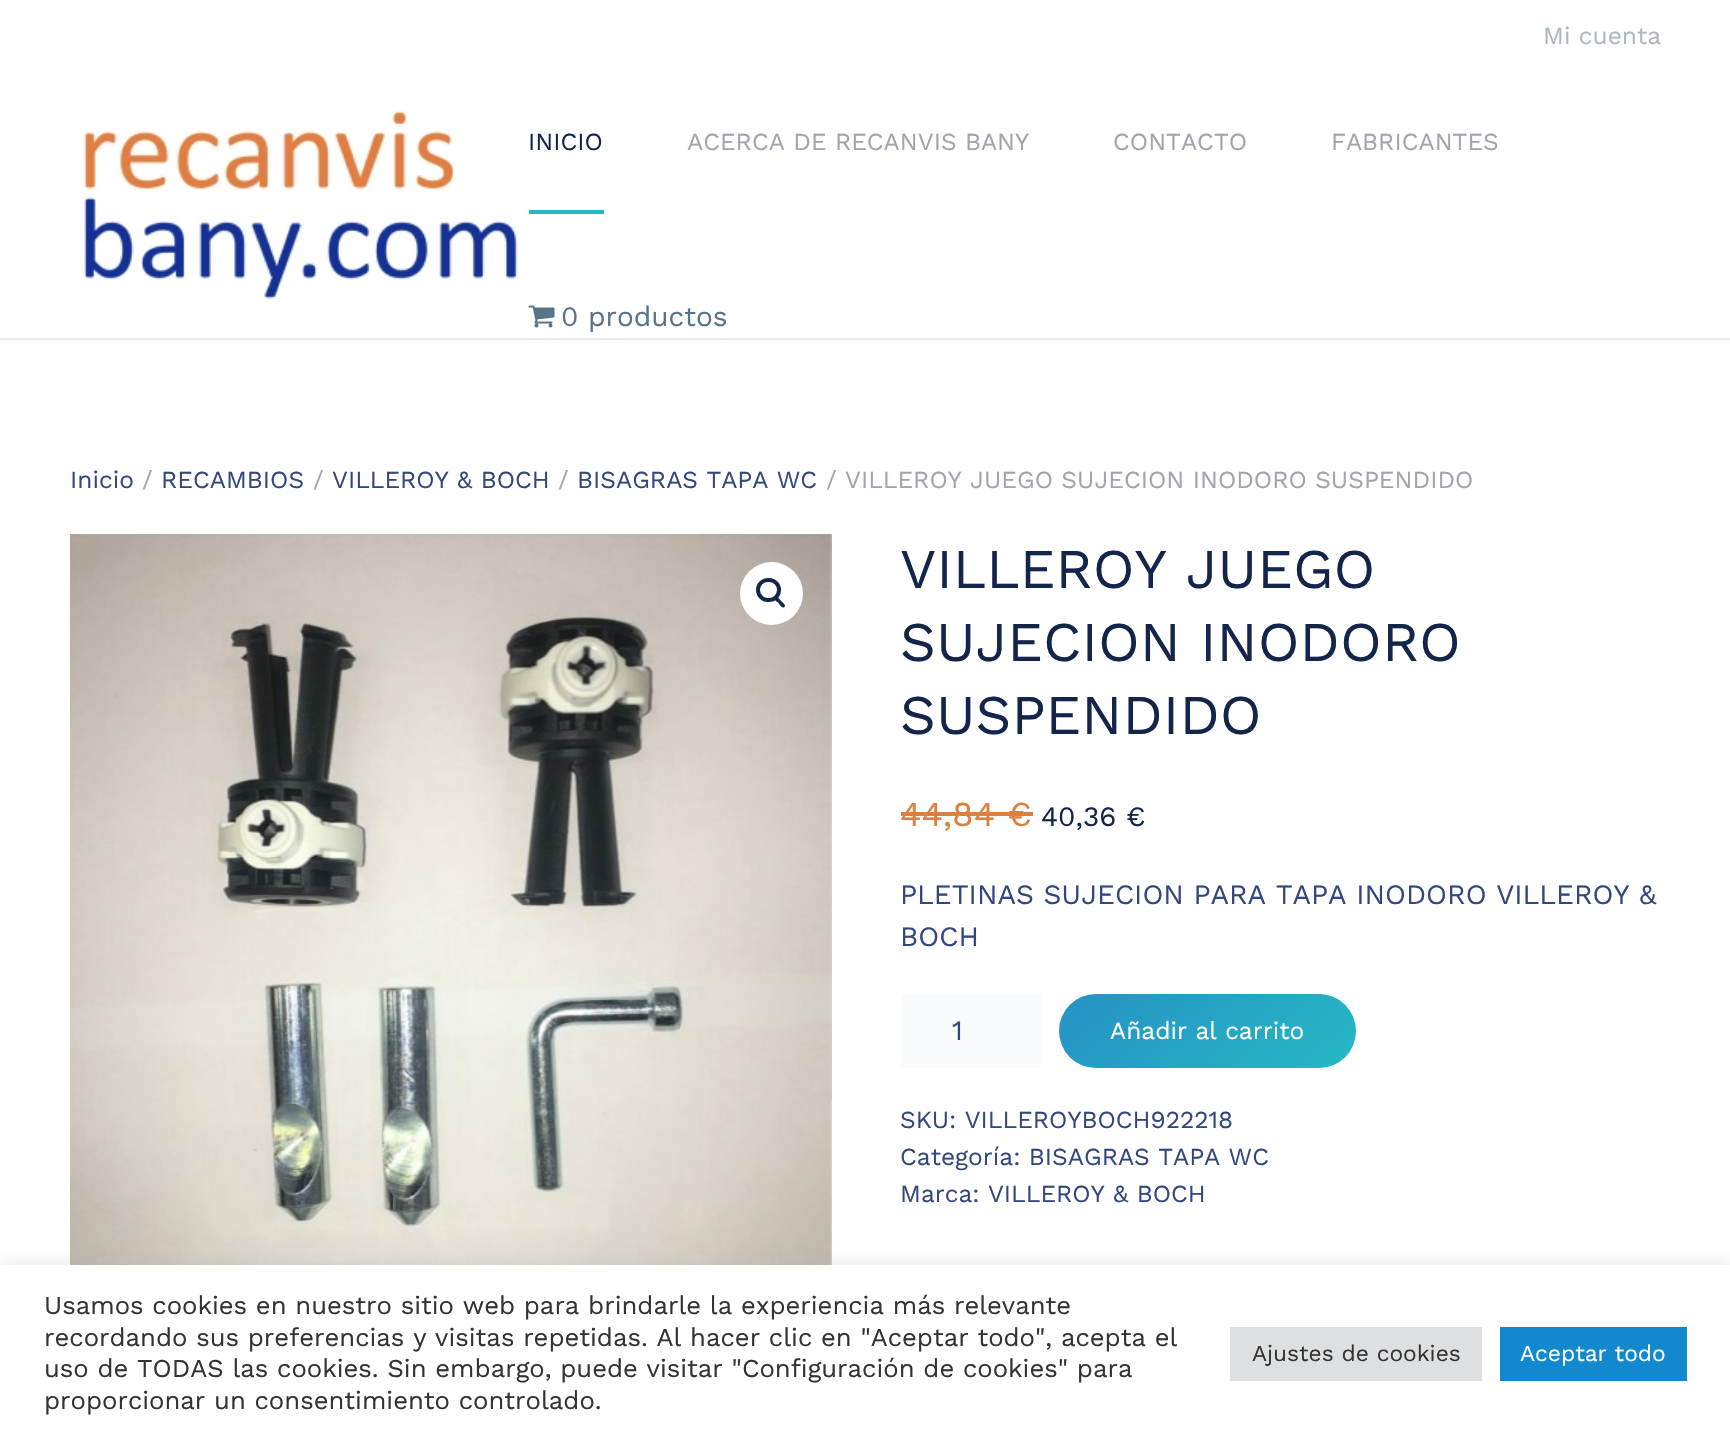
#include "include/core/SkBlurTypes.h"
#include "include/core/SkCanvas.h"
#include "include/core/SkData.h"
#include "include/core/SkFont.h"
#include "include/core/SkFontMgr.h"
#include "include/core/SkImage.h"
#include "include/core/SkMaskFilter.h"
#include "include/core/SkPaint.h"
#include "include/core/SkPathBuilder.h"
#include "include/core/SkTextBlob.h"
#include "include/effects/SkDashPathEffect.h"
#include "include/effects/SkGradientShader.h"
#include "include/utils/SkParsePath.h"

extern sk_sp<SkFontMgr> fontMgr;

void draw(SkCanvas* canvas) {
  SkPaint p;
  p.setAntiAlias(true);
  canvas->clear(SK_ColorWHITE);
  p.setColor(SkColorSetRGB(235, 235, 237));
  canvas->drawRect(SkRect::MakeLTRB(0, 338, 1730, 340), p);
  canvas->drawImageRect(SkImages::DeferredFromEncodedData(SkData::MakeFromFileName("images/1.png")), SkRect::MakeLTRB(82, 110, 518, 300), SkSamplingOptions());
  p.setColor(SkColorSetRGB(38, 185, 196));
  canvas->drawRect(SkRect::MakeLTRB(529, 210, 604, 214), p);
  canvas->drawImageRect(SkImages::DeferredFromEncodedData(SkData::MakeFromFileName("images/2.png")), SkRect::MakeLTRB(528, 305, 555, 328), SkSamplingOptions());
  canvas->drawImageRect(SkImages::DeferredFromEncodedData(SkData::MakeFromFileName("images/4.png")), SkRect::MakeLTRB(830, 534, 832, 1101), SkSamplingOptions());
  canvas->drawImageRect(SkImages::DeferredFromEncodedData(SkData::MakeFromFileName("images/3.png")), SkRect::MakeLTRB(70, 534, 832, 1265), SkSamplingOptions());
  p.setColor(SK_ColorWHITE);
  canvas->drawCircle(771.5f, 593.5f, 31.5f, p);
  p.setStyle(SkPaint::kStroke_Style);
  p.setStrokeWidth(4);
  p.setColor(SkColorSetRGB(19, 37, 75));
  canvas->drawRoundRect(SkRect::MakeLTRB(758, 580, 779, 600), 10, 10, p);
  p.setStyle(SkPaint::kFill_Style);
  canvas->drawPath(SkPathBuilder().moveTo(774.5f, 597).cubicTo(776.5f, 595, 780, 599.5f, 781, 601).cubicTo(782, 602, 786.5f, 605, 784.5f, 607).cubicTo(782.5f, 609, 779.5f, 604.5f, 778.5f, 603).cubicTo(777.5f, 602, 772.5f, 599, 774.5f, 597).close().detach(), p);
  p.setColor(SkColorSetRGB(222, 127, 63));
  canvas->drawRect(SkRect::MakeLTRB(901, 812, 1033, 816), p);
  p.setColor(SkColorSetRGB(250, 251, 252));
  canvas->drawRect(SkRect::MakeLTRB(901, 994, 1041, 1068), p);
  {
    const SkColor colors[] = {SkColorSetRGB(38, 185, 196), SkColorSetRGB(38, 145, 196)};
    const float stops[] = {0, 1};
    const SkPoint ends[] = {{1287, 1126}, {1128, 936}};
    p.setShader(SkGradientShader::MakeLinear(ends, colors, stops, 2, SkTileMode::kClamp));
    p.setAlpha(255);
  }
  canvas->drawRoundRect(SkRect::MakeLTRB(1059, 994, 1356, 1068), 37, 37, p);
  p.setShader(nullptr);
  p.setColor(SkColorSetARGB(77, 172, 171, 171));
  p.setMaskFilter(SkMaskFilter::MakeBlur(kNormal_SkBlurStyle, 9));
  canvas->drawRect(SkRect::MakeLTRB(0, 1264, 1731, 1439), p);
  p.setMaskFilter(nullptr);
  p.setColor(SK_ColorWHITE);
  canvas->drawRect(SkRect::MakeLTRB(0, 1265, 1730, 1439), p);
  p.setColor(SkColorSetRGB(222, 223, 224));
  canvas->drawRect(SkRect::MakeLTRB(1230, 1327, 1482, 1381), p);
  p.setColor(SkColorSetRGB(18, 137, 206));
  canvas->drawRect(SkRect::MakeLTRB(1500, 1327, 1687, 1381), p);
  SkFont font1(fontMgr->matchFamilyStyle("Work Sans", SkFontStyle::Normal()), 24.5f);
  font1.setSubpixel(true);
  p.setColor(SkColorSetRGB(171, 184, 195));
  canvas->drawString("Mi cuenta", 1543, 44, font1, p);
  p.setColor(SkColorSetRGB(19, 37, 75));
  canvas->drawString("INICIO", 528, 150, font1, p);
  p.setColor(SkColorSetRGB(163, 163, 176));
  canvas->drawString("ACERCA DE RECANVIS BANY", 687, 150, font1, p);
  canvas->drawString("CONTACTO", 1113, 150, font1, p);
  canvas->drawString("FABRICANTES", 1331, 150, font1, p);
  SkFont font2(fontMgr->matchFamilyStyle("Work Sans", SkFontStyle::Normal()), 28);
  font2.setSubpixel(true);
  p.setColor(SkColorSetRGB(87, 116, 138));
  canvas->drawString("0 productos", 561, 326, font2, p);
  p.setColor(SkColorSetRGB(50, 71, 126));
  canvas->drawString("Inicio", 70, 488, font1, p);
  p.setColor(SkColorSetRGB(163, 163, 176));
  canvas->drawString("/", 142, 488, font1, p);
  p.setColor(SkColorSetRGB(50, 71, 126));
  canvas->drawString("RECAMBIOS", 161, 488, font1, p);
  p.setColor(SkColorSetRGB(163, 163, 176));
  canvas->drawString("/", 313, 488, font1, p);
  p.setColor(SkColorSetRGB(50, 71, 126));
  canvas->drawString("VILLEROY & BOCH", 332, 488, font1, p);
  p.setColor(SkColorSetRGB(163, 163, 176));
  canvas->drawString("/", 558, 488, font1, p);
  p.setColor(SkColorSetRGB(50, 71, 126));
  canvas->drawString("BISAGRAS TAPA WC", 577, 488, font1, p);
  p.setColor(SkColorSetRGB(163, 163, 176));
  canvas->drawString("/ VILLEROY JUEGO SUJECION INODORO SUSPENDIDO", 826, 488, font1, p);
  SkFont font3(fontMgr->matchFamilyStyle("Work Sans", SkFontStyle::Normal()), 56);
  font3.setSubpixel(true);
  p.setColor(SkColorSetRGB(19, 37, 75));
  canvas->drawString("VILLEROY JUEGO", 900, 588, font3, p);
  canvas->drawString("SUJECION INODORO", 900, 661, font3, p);
  canvas->drawString("SUSPENDIDO", 900, 734, font3, p);
  SkFont font4(fontMgr->matchFamilyStyle("Work Sans", SkFontStyle::Normal()), 35);
  font4.setSubpixel(true);
  p.setColor(SkColorSetRGB(222, 127, 63));
  canvas->drawString("44,84 €", 900, 826, font4, p);
  p.setColor(SkColorSetRGB(19, 37, 75));
  canvas->drawString("40,36 €", 1041, 826, font2, p);
  p.setColor(SkColorSetRGB(50, 71, 126));
  canvas->drawString("PLETINAS SUJECION PARA TAPA INODORO VILLEROY &", 900, 904, font2, p);
  canvas->drawString("BOCH", 900, 946, font2, p);
  canvas->drawString("1", 952, 1040, font2, p);
  p.setColor(SK_ColorWHITE);
  canvas->drawString("Añadir al carrito", 1110, 1039, font1, p);
  p.setColor(SkColorSetRGB(50, 71, 126));
  canvas->drawString("SKU: VILLEROYBOCH922218", 900, 1128, font1, p);
  canvas->drawString("Categoría: BISAGRAS TAPA WC", 900, 1165, font1, p);
  canvas->drawString("Marca: VILLEROY & BOCH", 900, 1202, font1, p);
  SkFont font5(fontMgr->matchFamilyStyle("Work Sans", SkFontStyle::Normal()), 25.65f);
  font5.setSubpixel(true);
  p.setColor(SkColorSetRGB(51, 51, 51));
  canvas->drawString("Usamos cookies en nuestro sitio web para brindarle la experiencia más relevante", 44, 1314, font5, p);
  canvas->drawString("recordando sus preferencias y visitas repetidas. Al hacer clic en \"Aceptar todo\", acepta el", 44, 1346, font5, p);
  canvas->drawString("uso de TODAS las cookies. Sin embargo, puede visitar \"Configuración de cookies\" para", 44, 1377, font5, p);
  canvas->drawString("proporcionar un consentimiento controlado.", 44, 1409, font5, p);
  SkFont font6(fontMgr->matchFamilyStyle("Work Sans", SkFontStyle::Normal()), 22.75f);
  font6.setSubpixel(true);
  canvas->drawString("Ajustes de cookies", 1252, 1361, font6, p);
  p.setColor(SK_ColorWHITE);
  canvas->drawString("Aceptar todo", 1520, 1361, font6, p);
}
